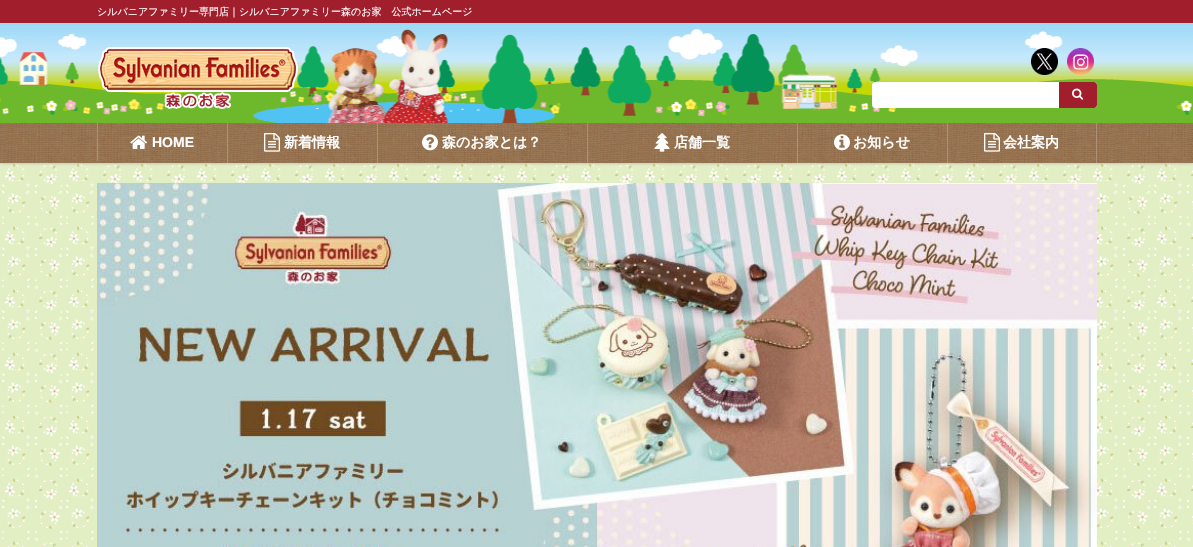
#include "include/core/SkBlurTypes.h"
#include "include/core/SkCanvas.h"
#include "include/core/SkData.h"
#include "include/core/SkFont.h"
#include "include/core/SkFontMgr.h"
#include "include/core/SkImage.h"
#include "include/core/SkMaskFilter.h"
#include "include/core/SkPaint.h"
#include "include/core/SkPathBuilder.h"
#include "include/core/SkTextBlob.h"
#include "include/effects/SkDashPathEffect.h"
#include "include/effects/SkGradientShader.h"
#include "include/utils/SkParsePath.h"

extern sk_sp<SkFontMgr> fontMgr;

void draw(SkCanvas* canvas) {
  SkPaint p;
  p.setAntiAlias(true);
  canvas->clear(SK_ColorWHITE);
  canvas->drawImageRect(SkImages::DeferredFromEncodedData(SkData::MakeFromFileName("images/1.png")), SkRect::MakeLTRB(0, 163, 1193, 547), SkSamplingOptions());
  p.setColor(SkColorSetRGB(170, 170, 170));
  p.setMaskFilter(SkMaskFilter::MakeBlur(kNormal_SkBlurStyle, 1.5f));
  canvas->drawRect(SkRect::MakeLTRB(0, 0, 1193, 163), p);
  p.setMaskFilter(nullptr);
  canvas->drawImageRect(SkImages::DeferredFromEncodedData(SkData::MakeFromFileName("images/2.png")), SkRect::MakeLTRB(0, 23, 1193, 123), SkSamplingOptions());
  p.setColor(SkColorSetRGB(161, 30, 44));
  canvas->drawRect(SkRect::MakeLTRB(0, 0, 1193, 23), p);
  canvas->drawImageRect(SkImages::DeferredFromEncodedData(SkData::MakeFromFileName("images/3.png")), SkRect::MakeLTRB(98, 47, 298, 109), SkSamplingOptions());
  canvas->drawImageRect(SkImages::DeferredFromEncodedData(SkData::MakeFromFileName("images/4.png")), SkRect::MakeLTRB(1031, 48, 1058, 75), SkSamplingOptions());
  canvas->drawImageRect(SkImages::DeferredFromEncodedData(SkData::MakeFromFileName("images/5.png")), SkRect::MakeLTRB(1067, 48, 1094, 75), SkSamplingOptions());
  p.setColor(SK_ColorWHITE);
  canvas->drawRoundRect(SkRect::MakeLTRB(872.5f, 82.5f, 1096.5f, 107.5f), 2.5f, 2.5f, p);
  p.setStyle(SkPaint::kStroke_Style);
  p.setStrokeWidth(1);
  canvas->drawRoundRect(SkRect::MakeLTRB(872.5f, 82.5f, 1096.5f, 107.5f), 2.5f, 2.5f, p);
  p.setStyle(SkPaint::kFill_Style);
  p.setColor(SkColorSetRGB(161, 30, 44));
  canvas->drawPath(SkPathBuilder().moveTo(1059, 82).lineTo(1094, 82).cubicTo(1095.5f, 82, 1097, 83.5f, 1097, 85).lineTo(1097, 105).cubicTo(1097, 106.5f, 1095.5f, 108, 1094, 108).lineTo(1059, 108).close().detach(), p);
  canvas->drawImageRect(SkImages::DeferredFromEncodedData(SkData::MakeFromFileName("images/6.png")), SkRect::MakeLTRB(1072, 88, 1084, 100), SkSamplingOptions());
  canvas->drawImageRect(SkImages::DeferredFromEncodedData(SkData::MakeFromFileName("images/7.png")), SkRect::MakeLTRB(0, 123, 1193, 163), SkSamplingOptions());
  p.setColor(SkColorSetRGB(168, 146, 124));
  canvas->drawRect(SkRect::MakeLTRB(97, 123, 98, 161), p);
  canvas->drawImageRect(SkImages::DeferredFromEncodedData(SkData::MakeFromFileName("images/8.png")), SkRect::MakeLTRB(130, 135, 147, 149), SkSamplingOptions());
  canvas->drawRect(SkRect::MakeLTRB(227, 123, 228, 163), p);
  canvas->drawImageRect(SkImages::DeferredFromEncodedData(SkData::MakeFromFileName("images/9.png")), SkRect::MakeLTRB(264, 133, 280, 152), SkSamplingOptions());
  canvas->drawRect(SkRect::MakeLTRB(377, 123, 378, 163), p);
  canvas->drawImageRect(SkImages::DeferredFromEncodedData(SkData::MakeFromFileName("images/10.png")), SkRect::MakeLTRB(422, 134, 438, 151), SkSamplingOptions());
  canvas->drawRect(SkRect::MakeLTRB(587, 123, 588, 163), p);
  canvas->drawImageRect(SkImages::DeferredFromEncodedData(SkData::MakeFromFileName("images/11.png")), SkRect::MakeLTRB(654, 133, 670, 152), SkSamplingOptions());
  canvas->drawRect(SkRect::MakeLTRB(797, 123, 798, 163), p);
  canvas->drawImageRect(SkImages::DeferredFromEncodedData(SkData::MakeFromFileName("images/12.png")), SkRect::MakeLTRB(834, 134, 850, 151), SkSamplingOptions());
  canvas->drawRect(SkRect::MakeLTRB(1096, 123, 1097, 163), p);
  canvas->drawRect(SkRect::MakeLTRB(947, 123, 948, 163), p);
  canvas->drawImageRect(SkImages::DeferredFromEncodedData(SkData::MakeFromFileName("images/13.png")), SkRect::MakeLTRB(984, 133, 1000, 152), SkSamplingOptions());
  canvas->drawImageRect(SkImages::DeferredFromEncodedData(SkData::MakeFromFileName("images/14.png")), SkRect::MakeLTRB(97, 183, 1097, 547), SkSamplingOptions());
  SkFont font1(fontMgr->matchFamilyStyle("WenQuanYi Zen Hei", SkFontStyle(500, SkFontStyle::kNormal_Width, SkFontStyle::kUpright_Slant)), 10);
  font1.setSubpixel(true);
  p.setColor(SK_ColorWHITE);
  canvas->drawString("シルバニアファミリー専門店｜シルバニアファミリー森のお家　公式ホームページ", 97, 15, font1, p);
  SkFont font2(fontMgr->matchFamilyStyle("Liberation Sans", SkFontStyle::Bold()), 14);
  font2.setSubpixel(true);
  canvas->drawString("HOME", 152, 147, font2, p);
  SkFont font3(fontMgr->matchFamilyStyle("WenQuanYi Zen Hei", SkFontStyle::Bold()), 14);
  font3.setSubpixel(true);
  canvas->drawString("新着情報", 284, 147, font3, p);
  canvas->drawString("森のお家とは？", 442, 147, font3, p);
  canvas->drawString("店舗一覧", 674, 147, font3, p);
  canvas->drawString("お知らせ", 853, 147, font3, p);
  canvas->drawString("会社案内", 1003, 147, font3, p);
}
